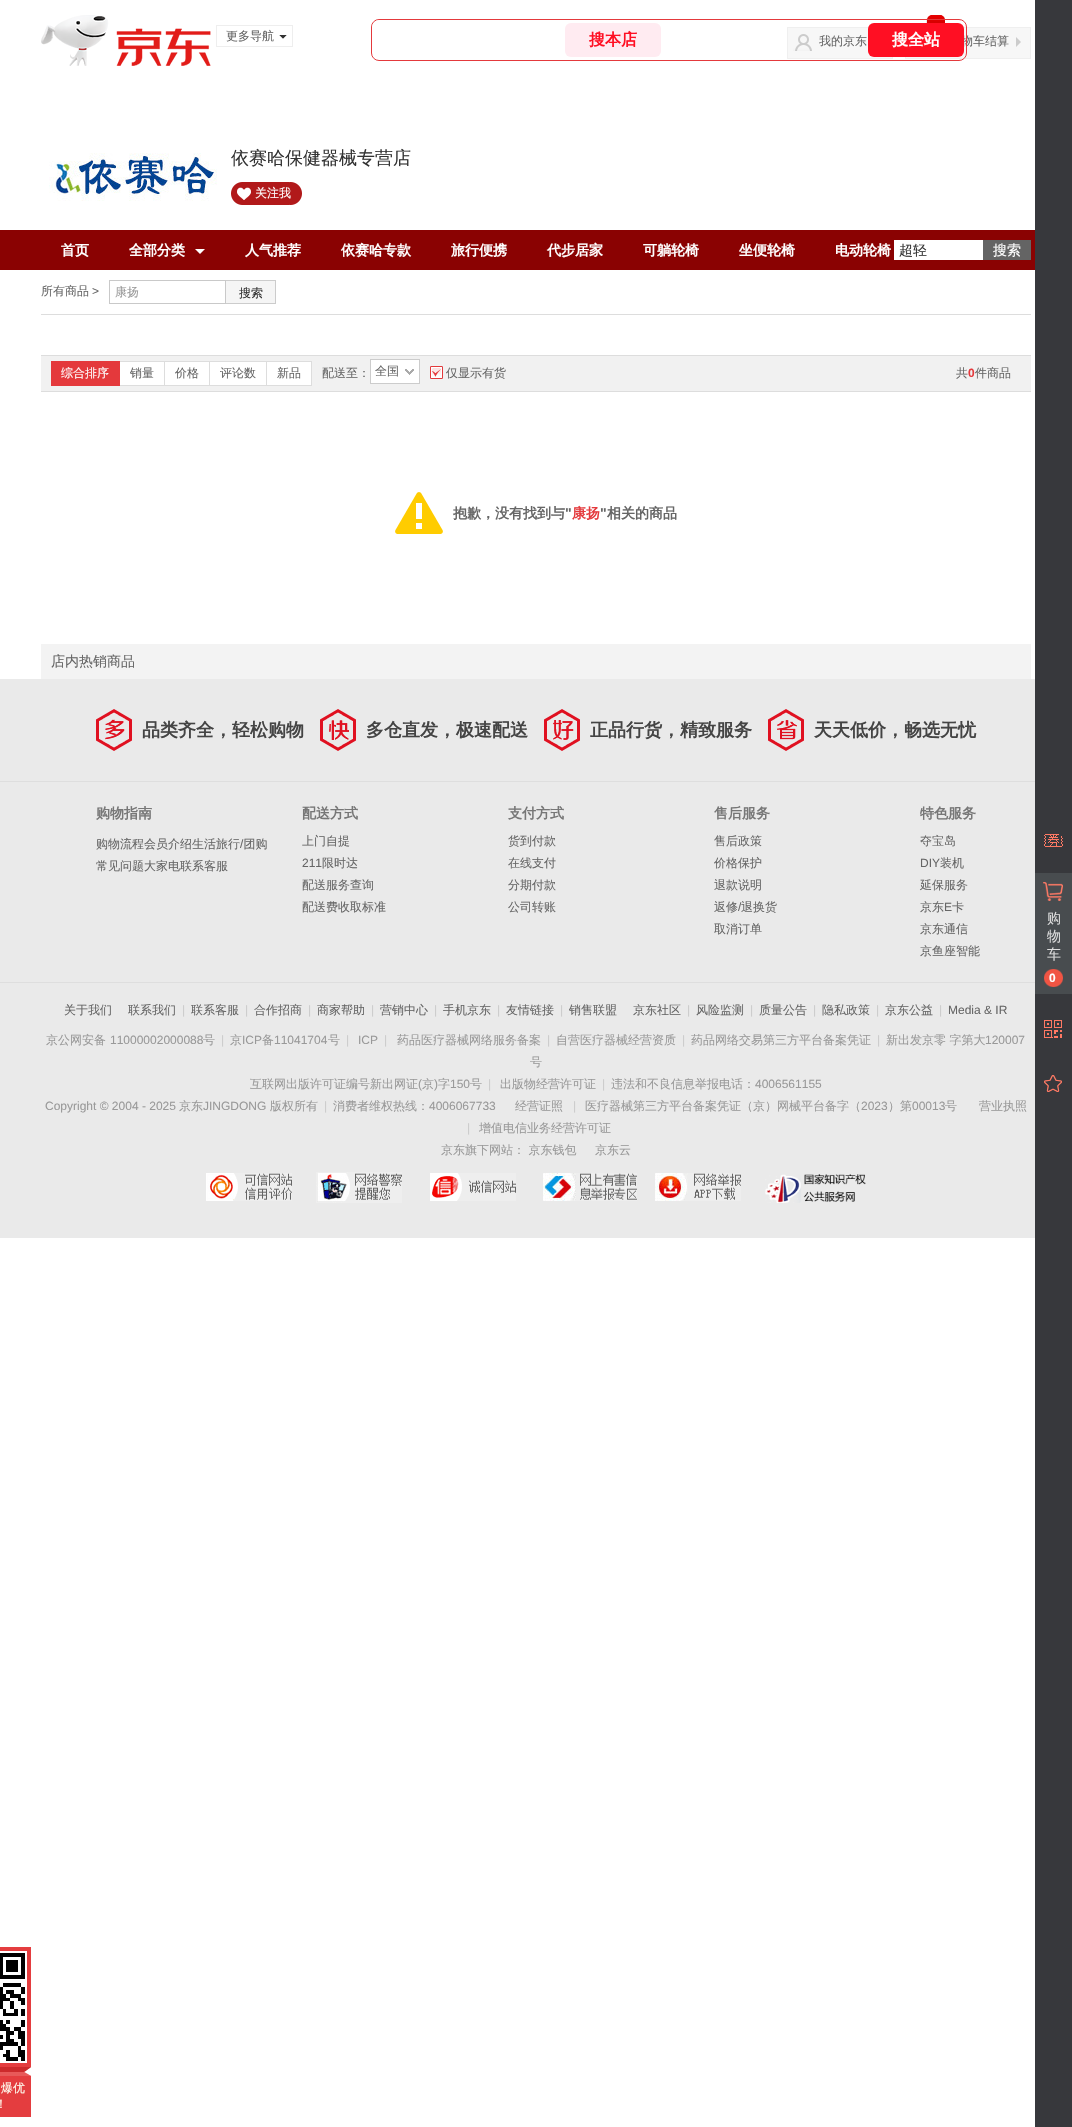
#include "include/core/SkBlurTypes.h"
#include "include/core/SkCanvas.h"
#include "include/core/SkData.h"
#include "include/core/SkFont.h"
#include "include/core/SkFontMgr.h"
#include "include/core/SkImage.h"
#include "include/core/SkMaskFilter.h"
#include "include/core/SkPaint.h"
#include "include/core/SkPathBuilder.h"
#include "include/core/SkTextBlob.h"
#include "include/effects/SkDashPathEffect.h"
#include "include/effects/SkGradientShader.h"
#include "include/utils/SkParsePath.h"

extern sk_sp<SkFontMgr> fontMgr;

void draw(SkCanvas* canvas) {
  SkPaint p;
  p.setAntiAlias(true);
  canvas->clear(SK_ColorWHITE);
  canvas->drawImageRect(SkImages::DeferredFromEncodedData(SkData::MakeFromFileName("images/1.png")), SkRect::MakeLTRB(41, 15, 211, 66), SkSamplingOptions());
  p.setStyle(SkPaint::kStroke_Style);
  p.setStrokeWidth(1);
  p.setColor(SkColorSetRGB(238, 238, 238));
  canvas->drawRect(SkRect::MakeLTRB(216.5f, 25.5f, 292.5f, 46.5f), p);
  p.setStyle(SkPaint::kFill_Style);
  p.setColor(SkColorSetRGB(51, 51, 51));
  canvas->drawPath(SkPathBuilder().moveTo(279, 35).lineTo(287, 35).lineTo(283, 39).close().detach(), p);
  p.setColor(SK_ColorWHITE);
  canvas->drawPath(SkPathBuilder().moveTo(287, 35).lineTo(287, 43).lineTo(283, 39).close().moveTo(279, 43).lineTo(279, 35).lineTo(283, 39).close().detach(), p);
  p.setColor(SkColorSetRGB(247, 247, 247));
  canvas->drawRect(SkRect::MakeLTRB(788, 28, 892, 58), p);
  canvas->drawImageRect(SkImages::DeferredFromEncodedData(SkData::MakeFromFileName("images/2.png")), SkRect::MakeLTRB(793, 34, 812, 51), SkSamplingOptions());
  p.setStyle(SkPaint::kStroke_Style);
  p.setColor(SkColorSetRGB(239, 239, 239));
  canvas->drawRect(SkRect::MakeLTRB(787.5f, 27.5f, 892.5f, 58.5f), p);
  p.setStyle(SkPaint::kFill_Style);
  p.setColor(SkColorSetRGB(247, 247, 247));
  canvas->drawRect(SkRect::MakeLTRB(905.5f, 27.5f, 1030.5f, 58.5f), p);
  p.setStyle(SkPaint::kStroke_Style);
  p.setColor(SkColorSetRGB(239, 239, 239));
  canvas->drawRect(SkRect::MakeLTRB(905.5f, 27.5f, 1030.5f, 58.5f), p);
  canvas->drawImageRect(SkImages::DeferredFromEncodedData(SkData::MakeFromFileName("images/3.png")), SkRect::MakeLTRB(926, 15, 945, 23), SkSamplingOptions());
  canvas->drawImageRect(SkImages::DeferredFromEncodedData(SkData::MakeFromFileName("images/4.png")), SkRect::MakeLTRB(934, 15, 945, 23), SkSamplingOptions());
  p.setStyle(SkPaint::kFill_Style);
  p.setColor(SkColorSetRGB(204, 204, 204));
  canvas->drawPath(SkPathBuilder().moveTo(1016, 47).lineTo(1016, 37).lineTo(1021, 42).close().detach(), p);
  canvas->drawImageRect(SkImages::DeferredFromEncodedData(SkData::MakeFromFileName("images/5.png")), SkRect::MakeLTRB(49, 153, 217, 201), SkSamplingOptions());
  canvas->drawImageRect(SkImages::DeferredFromEncodedData(SkData::MakeFromFileName("images/6.png")), SkRect::MakeLTRB(231, 182, 302, 205), SkSamplingOptions());
  p.setColor(SkColorSetRGB(138, 2, 2));
  canvas->drawRect(SkRect::MakeLTRB(0, 230, 1035, 270), p);
  p.setColor(SK_ColorWHITE);
  canvas->drawPath(SkPathBuilder().moveTo(195, 249).lineTo(205, 249).lineTo(200, 254).close().detach(), p);
  canvas->drawRect(SkRect::MakeLTRB(894, 240, 983, 260), p);
  p.setColor(SkColorSetRGB(100, 100, 100));
  canvas->drawRect(SkRect::MakeLTRB(983, 240, 1031, 260), p);
  p.setStyle(SkPaint::kStroke_Style);
  p.setColor(SkColorSetRGB(201, 201, 201));
  canvas->drawRect(SkRect::MakeLTRB(109.5f, 280.5f, 225.5f, 303.5f), p);
  p.setStyle(SkPaint::kFill_Style);
  p.setColor(SkColorSetRGB(245, 245, 245));
  canvas->drawRect(SkRect::MakeLTRB(226, 281, 275, 303), p);
  p.setColor(SkColorSetRGB(204, 204, 204));
  canvas->drawRect(SkRect::MakeLTRB(226, 280, 276, 281), p);
  canvas->drawRect(SkRect::MakeLTRB(275, 280, 276, 304), p);
  canvas->drawRect(SkRect::MakeLTRB(226, 303, 276, 304), p);
  p.setColor(SkColorSetRGB(221, 221, 221));
  canvas->drawRect(SkRect::MakeLTRB(41, 314, 1031, 315), p);
  p.setColor(SkColorSetRGB(241, 241, 241));
  canvas->drawRect(SkRect::MakeLTRB(41, 356, 1031, 391), p);
  p.setColor(SkColorSetRGB(221, 221, 221));
  canvas->drawRect(SkRect::MakeLTRB(41, 355, 1031, 356), p);
  canvas->drawRect(SkRect::MakeLTRB(41, 391, 1031, 392), p);
  p.setColor(SkColorSetRGB(228, 57, 60));
  canvas->drawRect(SkRect::MakeLTRB(51, 361, 120, 386), p);
  p.setColor(SK_ColorWHITE);
  canvas->drawRect(SkRect::MakeLTRB(120, 362, 164, 385), p);
  p.setColor(SkColorSetRGB(221, 221, 221));
  canvas->drawRect(SkRect::MakeLTRB(120, 361, 312, 362), p);
  canvas->drawRect(SkRect::MakeLTRB(164, 361, 165, 386), p);
  canvas->drawRect(SkRect::MakeLTRB(120, 385, 165, 386), p);
  p.setColor(SK_ColorWHITE);
  canvas->drawRect(SkRect::MakeLTRB(165, 362, 209, 385), p);
  p.setColor(SkColorSetRGB(221, 221, 221));
  canvas->drawRect(SkRect::MakeLTRB(209, 361, 210, 386), p);
  canvas->drawRect(SkRect::MakeLTRB(165, 385, 210, 386), p);
  p.setColor(SK_ColorWHITE);
  canvas->drawRect(SkRect::MakeLTRB(210, 362, 266, 385), p);
  p.setColor(SkColorSetRGB(221, 221, 221));
  canvas->drawRect(SkRect::MakeLTRB(266, 361, 267, 386), p);
  canvas->drawRect(SkRect::MakeLTRB(210, 385, 267, 386), p);
  p.setColor(SK_ColorWHITE);
  canvas->drawRect(SkRect::MakeLTRB(267, 362, 311, 385), p);
  p.setColor(SkColorSetRGB(221, 221, 221));
  canvas->drawRect(SkRect::MakeLTRB(311, 361, 312, 386), p);
  canvas->drawRect(SkRect::MakeLTRB(267, 385, 312, 386), p);
  p.setColor(SK_ColorWHITE);
  canvas->drawRect(SkRect::MakeLTRB(370.5f, 359.5f, 419.5f, 383.5f), p);
  p.setStyle(SkPaint::kStroke_Style);
  p.setColor(SkColorSetRGB(204, 204, 204));
  canvas->drawRect(SkRect::MakeLTRB(370.5f, 359.5f, 419.5f, 383.5f), p);
  canvas->drawImageRect(SkImages::DeferredFromEncodedData(SkData::MakeFromFileName("images/7.png")), SkRect::MakeLTRB(405, 369, 414, 375), SkSamplingOptions());
  canvas->drawImageRect(SkImages::DeferredFromEncodedData(SkData::MakeFromFileName("images/8.png")), SkRect::MakeLTRB(430, 366, 443, 379), SkSamplingOptions());
  canvas->drawImageRect(SkImages::DeferredFromEncodedData(SkData::MakeFromFileName("images/9.png")), SkRect::MakeLTRB(395, 492, 443, 534), SkSamplingOptions());
  p.setStyle(SkPaint::kFill_Style);
  p.setColor(SkColorSetRGB(243, 243, 243));
  canvas->drawRect(SkRect::MakeLTRB(41, 644, 1031, 679), p);
  p.setColor(SkColorSetRGB(234, 234, 234));
  canvas->drawRect(SkRect::MakeLTRB(0, 679, 1035, 1238), p);
  canvas->drawImageRect(SkImages::DeferredFromEncodedData(SkData::MakeFromFileName("images/10.png")), SkRect::MakeLTRB(96, 709, 132, 751), SkSamplingOptions());
  canvas->drawImageRect(SkImages::DeferredFromEncodedData(SkData::MakeFromFileName("images/11.png")), SkRect::MakeLTRB(320, 709, 356, 751), SkSamplingOptions());
  canvas->drawImageRect(SkImages::DeferredFromEncodedData(SkData::MakeFromFileName("images/12.png")), SkRect::MakeLTRB(544, 709, 580, 751), SkSamplingOptions());
  canvas->drawImageRect(SkImages::DeferredFromEncodedData(SkData::MakeFromFileName("images/13.png")), SkRect::MakeLTRB(768, 709, 804, 751), SkSamplingOptions());
  p.setColor(SkColorSetRGB(222, 222, 222));
  canvas->drawRect(SkRect::MakeLTRB(0, 781, 1035, 782), p);
  canvas->drawRect(SkRect::MakeLTRB(0, 982, 1035, 983), p);
  canvas->drawImageRect(SkImages::DeferredFromEncodedData(SkData::MakeFromFileName("images/14.png")), SkRect::MakeLTRB(206, 1173, 292, 1201), SkSamplingOptions());
  canvas->drawImageRect(SkImages::DeferredFromEncodedData(SkData::MakeFromFileName("images/15.png")), SkRect::MakeLTRB(316, 1172, 402, 1203), SkSamplingOptions());
  canvas->drawImageRect(SkImages::DeferredFromEncodedData(SkData::MakeFromFileName("images/16.png")), SkRect::MakeLTRB(430, 1173, 516, 1201), SkSamplingOptions());
  canvas->drawImageRect(SkImages::DeferredFromEncodedData(SkData::MakeFromFileName("images/17.png")), SkRect::MakeLTRB(543, 1173, 637, 1201), SkSamplingOptions());
  canvas->drawImageRect(SkImages::DeferredFromEncodedData(SkData::MakeFromFileName("images/18.png")), SkRect::MakeLTRB(655, 1173, 741, 1201), SkSamplingOptions());
  canvas->drawImageRect(SkImages::DeferredFromEncodedData(SkData::MakeFromFileName("images/19.png")), SkRect::MakeLTRB(765, 1174, 866, 1203), SkSamplingOptions());
  p.setColor(SkColorSetRGB(55, 56, 60));
  canvas->drawRect(SkRect::MakeLTRB(1035, 0, 1072, 2127), p);
  canvas->drawImageRect(SkImages::DeferredFromEncodedData(SkData::MakeFromFileName("images/20.png")), SkRect::MakeLTRB(1044, 834, 1063, 847), SkSamplingOptions());
  p.setColor(SkColorSetRGB(72, 76, 79));
  canvas->drawRect(SkRect::MakeLTRB(1035, 873, 1072, 994), p);
  canvas->drawImageRect(SkImages::DeferredFromEncodedData(SkData::MakeFromFileName("images/21.png")), SkRect::MakeLTRB(1043, 882, 1063, 901), SkSamplingOptions());
  canvas->drawImageRect(SkImages::DeferredFromEncodedData(SkData::MakeFromFileName("images/22.png")), SkRect::MakeLTRB(1044, 969, 1063, 987), SkSamplingOptions());
  canvas->drawImageRect(SkImages::DeferredFromEncodedData(SkData::MakeFromFileName("images/23.png")), SkRect::MakeLTRB(1044, 1020, 1062, 1038), SkSamplingOptions());
  canvas->drawImageRect(SkImages::DeferredFromEncodedData(SkData::MakeFromFileName("images/24.png")), SkRect::MakeLTRB(1044, 1075, 1062, 1092), SkSamplingOptions());
  p.setColor(SkColorSetRGB(228, 61, 63));
  canvas->drawRect(SkRect::MakeLTRB(0, 1947, 31, 2067), p);
  canvas->drawImageRect(SkImages::DeferredFromEncodedData(SkData::MakeFromFileName("images/25.png")), SkRect::MakeLTRB(0, 1951, 27, 2063), SkSamplingOptions());
  canvas->drawImageRect(SkImages::DeferredFromEncodedData(SkData::MakeFromFileName("images/26.png")), SkRect::MakeLTRB(0, 2067, 31, 2076), SkSamplingOptions());
  canvas->drawRect(SkRect::MakeLTRB(0, 2076, 31, 2117), p);
  SkFont font1(fontMgr->matchFamilyStyle("WenQuanYi Zen Hei", SkFontStyle(500, SkFontStyle::kNormal_Width, SkFontStyle::kUpright_Slant)), 12);
  font1.setSubpixel(true);
  p.setColor(SkColorSetRGB(102, 102, 102));
  canvas->drawString("更多导航", 226, 40, font1, p);
  canvas->drawString("我的京东", 819, 45, font1, p);
  canvas->drawString("物车结算", 961, 45, font1, p);
  p.setStyle(SkPaint::kStroke_Style);
  p.setColor(SkColorSetRGB(228, 57, 60));
  canvas->drawRoundRect(SkRect::MakeLTRB(371.5f, 19.5f, 966.5f, 60.5f), 7.5f, 7.5f, p);
  p.setStyle(SkPaint::kFill_Style);
  p.setColor(SkColorSetRGB(255, 15, 35));
  canvas->drawRoundRect(SkRect::MakeLTRB(868, 23, 964, 57), 6, 6, p);
  SkFont font2(fontMgr->matchFamilyStyle("WenQuanYi Zen Hei", SkFontStyle::Bold()), 16);
  font2.setSubpixel(true);
  p.setColor(SK_ColorWHITE);
  canvas->drawString("搜全站", 892, 45, font2, p);
  canvas->drawPath(SkPathBuilder().moveTo(380, 20).lineTo(567, 20).lineTo(567, 50).lineTo(372, 50).lineTo(372, 28).cubicTo(372, 23.5f, 375.5f, 20, 380, 20).close().detach(), p);
  p.setColor(SkColorSetRGB(255, 235, 241));
  canvas->drawRoundRect(SkRect::MakeLTRB(565, 23, 661, 57), 6, 6, p);
  p.setColor(SkColorSetRGB(255, 15, 35));
  canvas->drawString("搜本店", 589, 45, font2, p);
  SkFont font3(fontMgr->matchFamilyStyle("WenQuanYi Zen Hei", SkFontStyle(500, SkFontStyle::kNormal_Width, SkFontStyle::kUpright_Slant)), 18);
  font3.setSubpixel(true);
  p.setColor(SkColorSetRGB(51, 51, 51));
  canvas->drawString("依赛哈保健器械专营店", 231, 164, font3, p);
  p.setColor(SK_ColorWHITE);
  canvas->drawString("关注我", 255, 197, font1, p);
  SkFont font4(fontMgr->matchFamilyStyle("WenQuanYi Zen Hei", SkFontStyle::Bold()), 14);
  font4.setSubpixel(true);
  canvas->drawString("首页", 61, 255, font4, p);
  canvas->drawString("全部分类", 129, 255, font4, p);
  canvas->drawString("人气推荐", 245, 255, font4, p);
  canvas->drawString("依赛哈专款", 341, 255, font4, p);
  canvas->drawString("旅行便携", 451, 255, font4, p);
  canvas->drawString("代步居家", 547, 255, font4, p);
  canvas->drawString("可躺轮椅", 643, 255, font4, p);
  canvas->drawString("坐便轮椅", 739, 255, font4, p);
  canvas->drawString("电动轮椅", 835, 255, font4, p);
  SkFont font5(fontMgr->matchFamilyStyle("WenQuanYi Zen Hei", SkFontStyle(500, SkFontStyle::kNormal_Width, SkFontStyle::kUpright_Slant)), 14);
  font5.setSubpixel(true);
  p.setColor(SkColorSetRGB(51, 51, 51));
  canvas->drawString("超轻", 899, 255, font5, p);
  p.setColor(SK_ColorWHITE);
  canvas->drawString("搜索", 993, 255, font5, p);
  p.setColor(SkColorSetRGB(102, 102, 102));
  canvas->drawString("所有商品", 41, 295, font1, p);
  SkFont font6(fontMgr->matchFamilyStyle("Liberation Sans", SkFontStyle::Normal()), 12);
  font6.setSubpixel(true);
  canvas->drawString(">", 92, 295, font6, p);
  p.setColor(SkColorSetRGB(153, 153, 153));
  canvas->drawString("康扬", 115, 296, font1, p);
  p.setColor(SkColorSetRGB(51, 51, 51));
  canvas->drawString("搜索", 239, 297, font1, p);
  p.setColor(SK_ColorWHITE);
  canvas->drawString("综合排序", 61, 377, font1, p);
  p.setColor(SkColorSetRGB(102, 102, 102));
  canvas->drawString("销量", 130, 377, font1, p);
  canvas->drawString("价格", 175, 377, font1, p);
  canvas->drawString("评论数", 220, 377, font1, p);
  canvas->drawString("新品", 277, 377, font1, p);
  canvas->drawString("配送至：", 322, 377, font1, p);
  canvas->drawString("全国", 375, 375, font1, p);
  canvas->drawString("仅显示有货", 446, 377, font1, p);
  canvas->drawString("共", 956, 377, font1, p);
  SkFont font7(fontMgr->matchFamilyStyle("Liberation Sans", SkFontStyle::Bold()), 12);
  font7.setSubpixel(true);
  p.setColor(SkColorSetRGB(228, 57, 60));
  canvas->drawString("0", 968, 377, font7, p);
  p.setColor(SkColorSetRGB(102, 102, 102));
  canvas->drawString("件商品", 975, 377, font1, p);
  canvas->drawString("抱歉，没有找到与", 453, 518, font4, p);
  SkFont font8(fontMgr->matchFamilyStyle("Liberation Sans", SkFontStyle::Bold()), 14);
  font8.setSubpixel(true);
  canvas->drawString("\"", 565, 518, font8, p);
  p.setColor(SkColorSetRGB(228, 57, 60));
  canvas->drawString("康扬", 572, 518, font4, p);
  p.setColor(SkColorSetRGB(102, 102, 102));
  canvas->drawString("\"", 600, 518, font8, p);
  canvas->drawString("相关的商品", 607, 518, font4, p);
  canvas->drawString("店内热销商品", 51, 666, font5, p);
  SkFont font9(fontMgr->matchFamilyStyle("WenQuanYi Zen Hei", SkFontStyle::Bold()), 18);
  font9.setSubpixel(true);
  p.setColor(SkColorSetRGB(68, 68, 68));
  canvas->drawString("品类齐全，轻松购物", 142, 736, font9, p);
  canvas->drawString("多仓直发，极速配送", 366, 736, font9, p);
  canvas->drawString("正品行货，精致服务", 590, 736, font9, p);
  canvas->drawString("天天低价，畅选无忧", 814, 736, font9, p);
  p.setColor(SkColorSetRGB(119, 119, 119));
  canvas->drawString("购物指南", 96, 818, font4, p);
  p.setColor(SkColorSetRGB(102, 102, 102));
  canvas->drawString("购物流程会员介绍生活旅行 团购", 96, 848, font1, p);
  canvas->drawString("/", 240, 848, font6, p);
  canvas->drawString("常见问题大家电联系客服", 96, 870, font1, p);
  p.setColor(SkColorSetRGB(119, 119, 119));
  canvas->drawString("配送方式", 302, 818, font4, p);
  p.setColor(SkColorSetRGB(102, 102, 102));
  canvas->drawString("上门自提", 302, 845, font1, p);
  canvas->drawString("211", 302, 867, font6, p);
  canvas->drawString("限时达", 322, 867, font1, p);
  canvas->drawString("配送服务查询", 302, 889, font1, p);
  canvas->drawString("配送费收取标准", 302, 911, font1, p);
  p.setColor(SkColorSetRGB(119, 119, 119));
  canvas->drawString("支付方式", 508, 818, font4, p);
  p.setColor(SkColorSetRGB(102, 102, 102));
  canvas->drawString("货到付款", 508, 845, font1, p);
  canvas->drawString("在线支付", 508, 867, font1, p);
  canvas->drawString("分期付款", 508, 889, font1, p);
  canvas->drawString("公司转账", 508, 911, font1, p);
  p.setColor(SkColorSetRGB(119, 119, 119));
  canvas->drawString("售后服务", 714, 818, font4, p);
  p.setColor(SkColorSetRGB(102, 102, 102));
  canvas->drawString("售后政策", 714, 845, font1, p);
  canvas->drawString("价格保护", 714, 867, font1, p);
  canvas->drawString("退款说明", 714, 889, font1, p);
  canvas->drawString("返修", 714, 911, font1, p);
  canvas->drawString("/", 738, 911, font6, p);
  canvas->drawString("退换货", 741, 911, font1, p);
  canvas->drawString("取消订单", 714, 933, font1, p);
  p.setColor(SkColorSetRGB(119, 119, 119));
  canvas->drawString("特色服务", 920, 818, font4, p);
  p.setColor(SkColorSetRGB(102, 102, 102));
  canvas->drawString("夺宝岛", 920, 845, font1, p);
  canvas->drawString("DIY", 920, 867, font6, p);
  canvas->drawString("装机", 940, 867, font1, p);
  canvas->drawString("延保服务", 920, 889, font1, p);
  canvas->drawString("京东", 920, 911, font1, p);
  canvas->drawString("E", 944, 911, font6, p);
  canvas->drawString("卡", 952, 911, font1, p);
  canvas->drawString("京东通信", 920, 933, font1, p);
  canvas->drawString("京鱼座智能", 920, 955, font1, p);
  canvas->drawString("关于我们", 64, 1014, font1, p);
  canvas->drawString("联系我们", 128, 1014, font1, p);
  p.setColor(SkColorSetRGB(204, 204, 204));
  canvas->drawString("|", 182, 1014, font6, p);
  p.setColor(SkColorSetRGB(102, 102, 102));
  canvas->drawString("联系客服", 191, 1014, font1, p);
  p.setColor(SkColorSetRGB(204, 204, 204));
  canvas->drawString("|", 245, 1014, font6, p);
  p.setColor(SkColorSetRGB(102, 102, 102));
  canvas->drawString("合作招商", 254, 1014, font1, p);
  p.setColor(SkColorSetRGB(204, 204, 204));
  canvas->drawString("|", 308, 1014, font6, p);
  p.setColor(SkColorSetRGB(102, 102, 102));
  canvas->drawString("商家帮助", 317, 1014, font1, p);
  p.setColor(SkColorSetRGB(204, 204, 204));
  canvas->drawString("|", 371, 1014, font6, p);
  p.setColor(SkColorSetRGB(102, 102, 102));
  canvas->drawString("营销中心", 380, 1014, font1, p);
  p.setColor(SkColorSetRGB(204, 204, 204));
  canvas->drawString("|", 434, 1014, font6, p);
  p.setColor(SkColorSetRGB(102, 102, 102));
  canvas->drawString("手机京东", 443, 1014, font1, p);
  p.setColor(SkColorSetRGB(204, 204, 204));
  canvas->drawString("|", 497, 1014, font6, p);
  p.setColor(SkColorSetRGB(102, 102, 102));
  canvas->drawString("友情链接", 506, 1014, font1, p);
  p.setColor(SkColorSetRGB(204, 204, 204));
  canvas->drawString("|", 560, 1014, font6, p);
  p.setColor(SkColorSetRGB(102, 102, 102));
  canvas->drawString("销售联盟", 569, 1014, font1, p);
  canvas->drawString("京东社区", 633, 1014, font1, p);
  p.setColor(SkColorSetRGB(204, 204, 204));
  canvas->drawString("|", 687, 1014, font6, p);
  p.setColor(SkColorSetRGB(102, 102, 102));
  canvas->drawString("风险监测", 696, 1014, font1, p);
  p.setColor(SkColorSetRGB(204, 204, 204));
  canvas->drawString("|", 750, 1014, font6, p);
  p.setColor(SkColorSetRGB(102, 102, 102));
  canvas->drawString("质量公告", 759, 1014, font1, p);
  p.setColor(SkColorSetRGB(204, 204, 204));
  canvas->drawString("|", 813, 1014, font6, p);
  p.setColor(SkColorSetRGB(102, 102, 102));
  canvas->drawString("隐私政策", 822, 1014, font1, p);
  p.setColor(SkColorSetRGB(204, 204, 204));
  canvas->drawString("|", 876, 1014, font6, p);
  p.setColor(SkColorSetRGB(102, 102, 102));
  canvas->drawString("京东公益", 885, 1014, font1, p);
  p.setColor(SkColorSetRGB(204, 204, 204));
  canvas->drawString("|", 939, 1014, font6, p);
  p.setColor(SkColorSetRGB(102, 102, 102));
  canvas->drawString("Media & IR", 948, 1014, font6, p);
  p.setColor(SkColorSetRGB(153, 153, 153));
  canvas->drawString("京公网安备", 46, 1044, font1, p);
  canvas->drawString("11000002000088", 110, 1044, font6, p);
  canvas->drawString("号", 203, 1044, font1, p);
  p.setColor(SkColorSetRGB(204, 204, 204));
  canvas->drawString("|", 221, 1044, font6, p);
  p.setColor(SkColorSetRGB(153, 153, 153));
  canvas->drawString("京", 230, 1044, font1, p);
  canvas->drawString("ICP", 242, 1044, font6, p);
  canvas->drawString("备", 262, 1044, font1, p);
  canvas->drawString("11041704", 274, 1044, font6, p);
  canvas->drawString("号", 328, 1044, font1, p);
  p.setColor(SkColorSetRGB(204, 204, 204));
  canvas->drawString("|", 346, 1044, font6, p);
  p.setColor(SkColorSetRGB(153, 153, 153));
  canvas->drawString("ICP", 358, 1044, font6, p);
  p.setColor(SkColorSetRGB(204, 204, 204));
  canvas->drawString("|", 384, 1044, font6, p);
  p.setColor(SkColorSetRGB(153, 153, 153));
  canvas->drawString("药品医疗器械网络服务备案", 397, 1044, font1, p);
  p.setColor(SkColorSetRGB(204, 204, 204));
  canvas->drawString("|", 547, 1044, font6, p);
  p.setColor(SkColorSetRGB(153, 153, 153));
  canvas->drawString("自营医疗器械经营资质", 556, 1044, font1, p);
  p.setColor(SkColorSetRGB(204, 204, 204));
  canvas->drawString("|", 682, 1044, font6, p);
  p.setColor(SkColorSetRGB(153, 153, 153));
  canvas->drawString("药品网络交易第三方平台备案凭证", 691, 1044, font1, p);
  p.setColor(SkColorSetRGB(204, 204, 204));
  canvas->drawString("|", 877, 1044, font6, p);
  p.setColor(SkColorSetRGB(153, 153, 153));
  canvas->drawString("新出发京零 字第大", 886, 1044, font1, p);
  canvas->drawString("120007", 985, 1044, font6, p);
  canvas->drawString("号", 530, 1066, font1, p);
  canvas->drawString("互联网出版许可证编号新出网证", 250, 1088, font1, p);
  canvas->drawString("(", 418, 1088, font6, p);
  canvas->drawString("京", 422, 1088, font1, p);
  canvas->drawString(")", 434, 1088, font6, p);
  canvas->drawString("字", 438, 1088, font1, p);
  canvas->drawString("150", 450, 1088, font6, p);
  canvas->drawString("号", 470, 1088, font1, p);
  p.setColor(SkColorSetRGB(204, 204, 204));
  canvas->drawString("|", 488, 1088, font6, p);
  p.setColor(SkColorSetRGB(153, 153, 153));
  canvas->drawString("出版物经营许可证", 500, 1088, font1, p);
  p.setColor(SkColorSetRGB(204, 204, 204));
  canvas->drawString("|", 602, 1088, font6, p);
  p.setColor(SkColorSetRGB(153, 153, 153));
  canvas->drawString("违法和不良信息举报电话：", 611, 1088, font1, p);
  canvas->drawString("4006561155", 755, 1088, font6, p);
  canvas->drawString("Copyright © 2004 - 2025", 45, 1110, font6, p);
  canvas->drawString("京东", 179, 1110, font1, p);
  canvas->drawString("JINGDONG", 203, 1110, font6, p);
  canvas->drawString("版权所有", 270, 1110, font1, p);
  p.setColor(SkColorSetRGB(204, 204, 204));
  canvas->drawString("|", 324, 1110, font6, p);
  p.setColor(SkColorSetRGB(153, 153, 153));
  canvas->drawString("消费者维权热线：", 333, 1110, font1, p);
  canvas->drawString("4006067733", 429, 1110, font6, p);
  canvas->drawString("经营证照", 515, 1110, font1, p);
  p.setColor(SkColorSetRGB(204, 204, 204));
  canvas->drawString("|", 573, 1110, font6, p);
  p.setColor(SkColorSetRGB(153, 153, 153));
  canvas->drawString("医疗器械第三方平台备案凭证（京）网械平台备字（", 585, 1110, font1, p);
  canvas->drawString("2023", 861, 1110, font6, p);
  canvas->drawString("）第", 888, 1110, font1, p);
  canvas->drawString("00013", 912, 1110, font6, p);
  canvas->drawString("号", 945, 1110, font1, p);
  canvas->drawString("营业执照", 979, 1110, font1, p);
  p.setColor(SkColorSetRGB(204, 204, 204));
  canvas->drawString("|", 467, 1132, font6, p);
  p.setColor(SkColorSetRGB(153, 153, 153));
  canvas->drawString("增值电信业务经营许可证", 479, 1132, font1, p);
  canvas->drawString("京东旗下网站： 京东钱包", 441, 1154, font1, p);
  canvas->drawString("京东云", 595, 1154, font1, p);
  p.setColor(SkColorSetRGB(221, 221, 221));
  canvas->drawString("购", 1047, 923, font5, p);
  canvas->drawString("物", 1047, 941, font5, p);
  canvas->drawString("车", 1047, 959, font5, p);
  p.setColor(SK_ColorWHITE);
  canvas->drawString("0", 1049, 982, font7, p);
  p.setColor(SkColorSetRGB(255, 251, 238));
  canvas->drawString("爆优", 1, 2092, font1, p);
  canvas->drawString("！", -5, 2108, font1, p);
}
